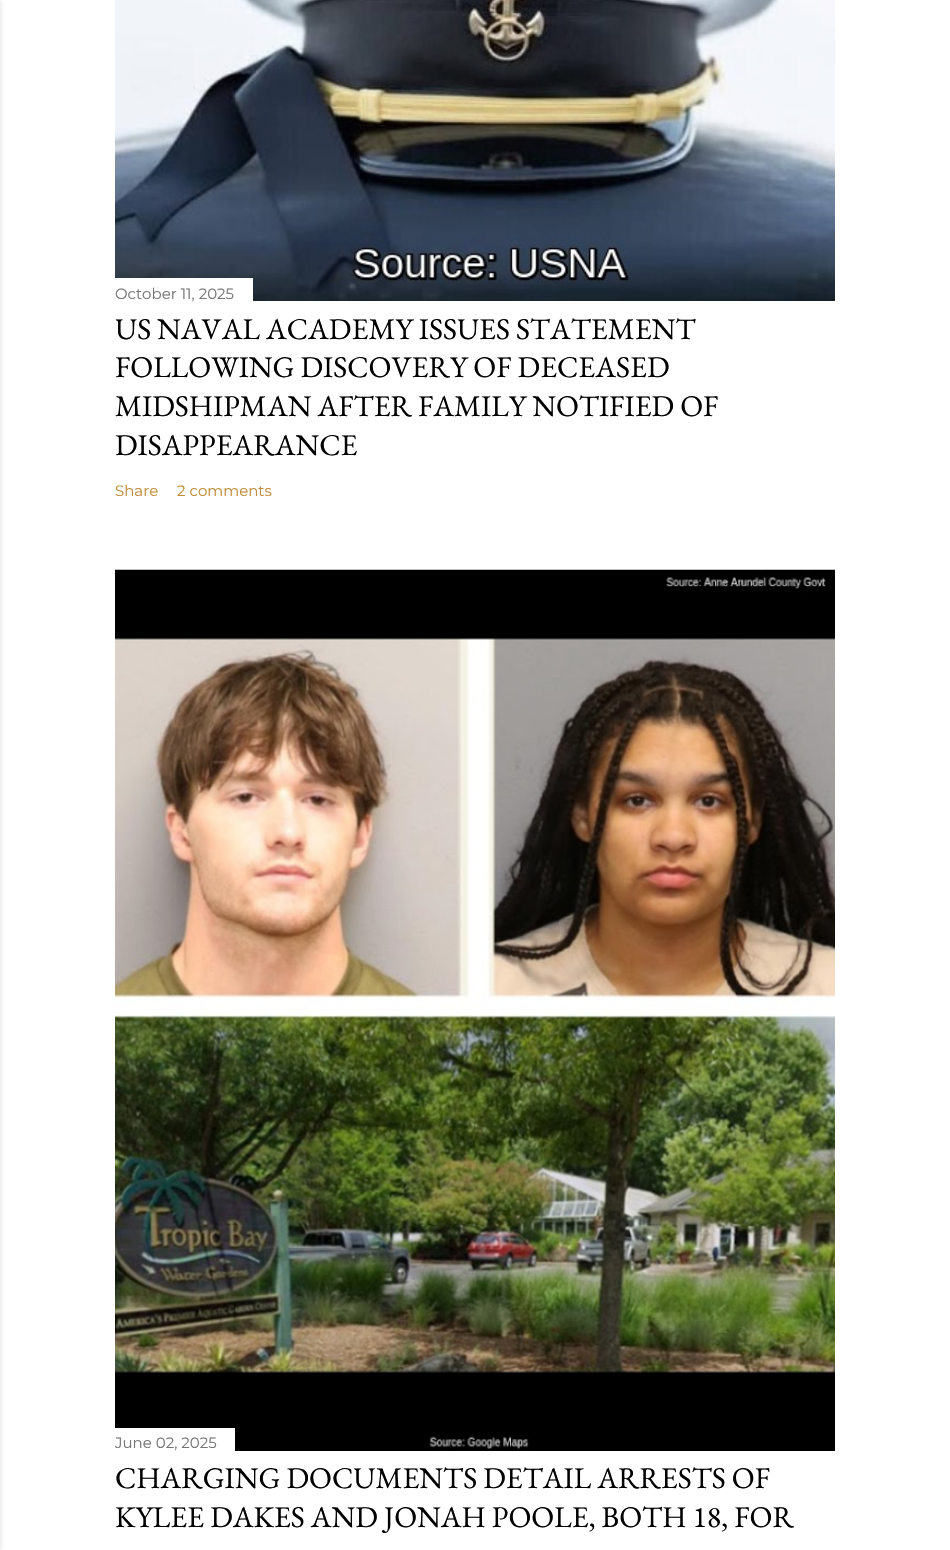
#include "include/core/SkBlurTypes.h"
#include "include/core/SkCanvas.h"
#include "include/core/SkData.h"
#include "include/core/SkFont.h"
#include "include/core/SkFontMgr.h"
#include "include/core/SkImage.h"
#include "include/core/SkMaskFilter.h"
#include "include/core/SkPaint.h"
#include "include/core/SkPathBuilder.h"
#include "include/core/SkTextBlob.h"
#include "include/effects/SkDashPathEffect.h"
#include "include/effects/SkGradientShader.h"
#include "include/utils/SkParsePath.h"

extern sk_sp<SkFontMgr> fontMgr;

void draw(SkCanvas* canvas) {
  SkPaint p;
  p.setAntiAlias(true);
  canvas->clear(SK_ColorWHITE);
  p.setColor(SkColorSetARGB(26, 0, 0, 0));
  p.setMaskFilter(SkMaskFilter::MakeBlur(kNormal_SkBlurStyle, 2));
  canvas->drawRect(SkRect::MakeLTRB(-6, 0, 1, 1550), p);
  p.setMaskFilter(nullptr);
  canvas->drawImageRect(SkImages::DeferredFromEncodedData(SkData::MakeFromFileName("images/1.png")), SkRect::MakeLTRB(115, 0, 835, 301), SkSamplingOptions());
  p.setColor(SK_ColorWHITE);
  canvas->drawRect(SkRect::MakeLTRB(115, 278, 253, 301), p);
  canvas->drawImageRect(SkImages::DeferredFromEncodedData(SkData::MakeFromFileName("images/2.png")), SkRect::MakeLTRB(115, 569, 835, 1451), SkSamplingOptions());
  canvas->drawRect(SkRect::MakeLTRB(115, 1428, 235, 1451), p);
  SkFont font1(fontMgr->matchFamilyStyle("Montserrat", SkFontStyle::Normal()), 15);
  font1.setSubpixel(true);
  p.setColor(SkColorSetRGB(117, 117, 117));
  canvas->drawString("October 11, 2025", 115, 299, font1, p);
  SkFont font2(fontMgr->matchFamilyStyle("EB Garamond", SkFontStyle::Normal()), 30);
  font2.setSubpixel(true);
  p.setColor(SK_ColorBLACK);
  canvas->drawString("US NAVAL ACADEMY ISSUES STATEMENT", 115, 339, font2, p);
  canvas->drawString("FOLLOWING DISCOVERY OF DECEASED", 115, 377, font2, p);
  canvas->drawString("MIDSHIPMAN AFTER FAMILY NOTIFIED OF", 115, 416, font2, p);
  canvas->drawString("DISAPPEARANCE", 115, 455, font2, p);
  p.setColor(SkColorSetRGB(191, 139, 56));
  canvas->drawString("Share", 115, 496, font1, p);
  canvas->drawString("2 comments", 177, 496, font1, p);
  p.setColor(SkColorSetRGB(117, 117, 117));
  canvas->drawString("June 02, 2025", 115, 1448, font1, p);
  p.setColor(SK_ColorBLACK);
  canvas->drawString("CHARGING DOCUMENTS DETAIL ARRESTS OF", 115, 1488, font2, p);
  canvas->drawString("KYLEE DAKES AND JONAH POOLE, BOTH 18, FOR", 115, 1527, font2, p);
}
